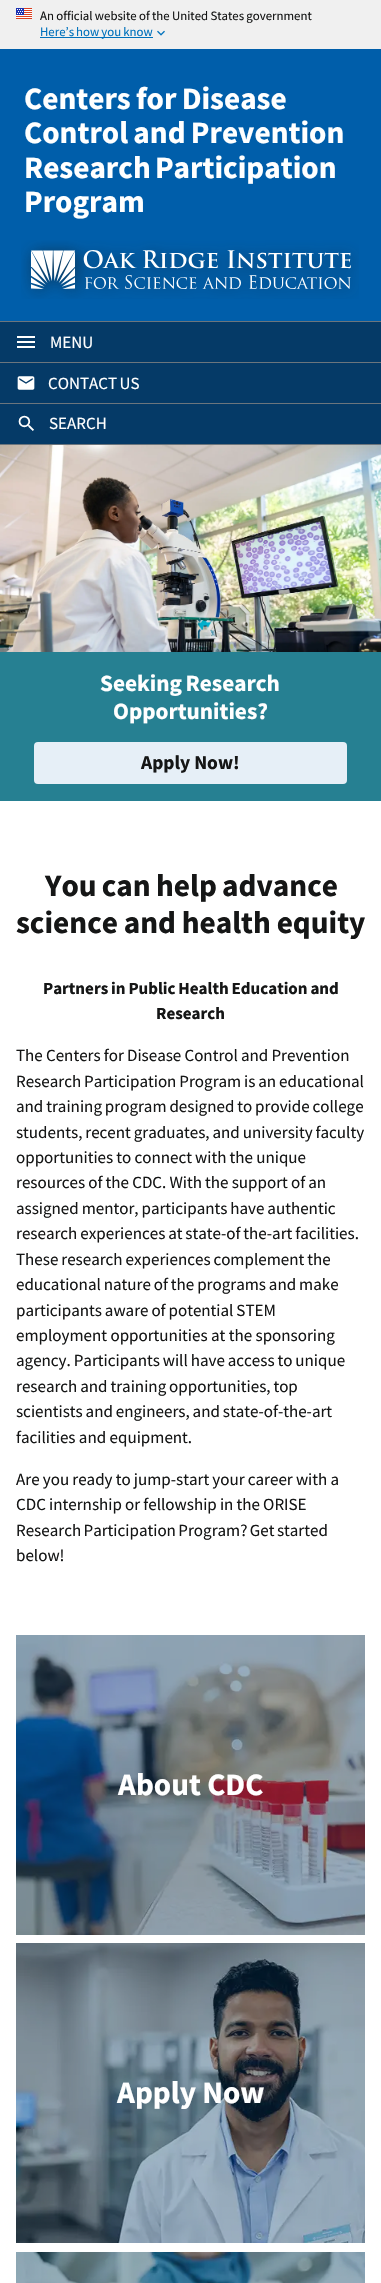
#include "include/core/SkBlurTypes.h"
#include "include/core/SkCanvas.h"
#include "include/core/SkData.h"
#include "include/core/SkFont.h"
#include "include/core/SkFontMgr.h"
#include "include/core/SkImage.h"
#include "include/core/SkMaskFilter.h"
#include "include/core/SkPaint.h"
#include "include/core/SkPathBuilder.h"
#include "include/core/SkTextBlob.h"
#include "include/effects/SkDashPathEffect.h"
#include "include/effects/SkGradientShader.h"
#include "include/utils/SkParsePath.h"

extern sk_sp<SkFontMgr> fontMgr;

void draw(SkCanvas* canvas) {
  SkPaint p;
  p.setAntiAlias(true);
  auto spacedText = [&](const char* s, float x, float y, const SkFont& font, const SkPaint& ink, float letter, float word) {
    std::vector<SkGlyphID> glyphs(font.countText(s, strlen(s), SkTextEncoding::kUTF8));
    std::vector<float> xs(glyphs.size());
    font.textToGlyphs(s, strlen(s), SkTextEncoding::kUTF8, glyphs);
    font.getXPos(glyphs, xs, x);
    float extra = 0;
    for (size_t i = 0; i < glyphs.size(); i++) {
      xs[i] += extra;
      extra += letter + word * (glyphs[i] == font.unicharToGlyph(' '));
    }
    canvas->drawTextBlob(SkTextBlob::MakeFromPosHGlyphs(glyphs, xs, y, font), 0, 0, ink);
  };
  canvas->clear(SkColorSetRGB(240, 240, 240));
  canvas->drawImageRect(SkImages::DeferredFromEncodedData(SkData::MakeFromFileName("images/1.png")), SkRect::MakeLTRB(16, 8, 32, 19), SkSamplingOptions());
  p.setColor(SkColorSetRGB(0, 113, 188));
  canvas->drawRect(SkRect::MakeLTRB(40, 37, 153, 38), p);
  canvas->drawImageRect(SkImages::DeferredFromEncodedData(SkData::MakeFromFileName("images/2.png")), SkRect::MakeLTRB(157, 30, 165, 36), SkSamplingOptions());
  p.setColor(SkColorSetRGB(0, 94, 170));
  canvas->drawRect(SkRect::MakeLTRB(0, 49, 381, 321), p);
  canvas->drawImageRect(SkImages::DeferredFromEncodedData(SkData::MakeFromFileName("images/3.png")), SkRect::MakeLTRB(21, 240, 359, 299), SkSamplingOptions());
  p.setColor(SkColorSetRGB(108, 117, 125));
  canvas->drawRect(SkRect::MakeLTRB(0, 321, 381, 322), p);
  canvas->drawRect(SkRect::MakeLTRB(0, 444, 381, 445), p);
  p.setColor(SkColorSetRGB(5, 58, 103));
  canvas->drawRect(SkRect::MakeLTRB(0, 322, 381, 362), p);
  canvas->drawImageRect(SkImages::DeferredFromEncodedData(SkData::MakeFromFileName("images/4.png")), SkRect::MakeLTRB(17, 336, 35, 348), SkSamplingOptions());
  p.setColor(SkColorSetRGB(108, 117, 125));
  canvas->drawRect(SkRect::MakeLTRB(0, 362, 381, 363), p);
  p.setColor(SkColorSetRGB(5, 58, 103));
  canvas->drawRect(SkRect::MakeLTRB(0, 363, 381, 403), p);
  canvas->drawImageRect(SkImages::DeferredFromEncodedData(SkData::MakeFromFileName("images/5.png")), SkRect::MakeLTRB(17, 376, 35, 390), SkSamplingOptions());
  p.setColor(SkColorSetRGB(108, 117, 125));
  canvas->drawRect(SkRect::MakeLTRB(0, 403, 381, 404), p);
  p.setColor(SkColorSetRGB(5, 58, 103));
  canvas->drawRect(SkRect::MakeLTRB(0, 404, 381, 444), p);
  canvas->drawImageRect(SkImages::DeferredFromEncodedData(SkData::MakeFromFileName("images/6.png")), SkRect::MakeLTRB(18, 415, 34, 431), SkSamplingOptions());
  canvas->drawImageRect(SkImages::DeferredFromEncodedData(SkData::MakeFromFileName("images/7.png")), SkRect::MakeLTRB(0, 445, 381, 652), SkSamplingOptions());
  p.setColor(SkColorSetRGB(38, 128, 146));
  canvas->drawRect(SkRect::MakeLTRB(0, 652, 381, 801), p);
  p.setColor(SkColorSetRGB(230, 239, 247));
  canvas->drawRoundRect(SkRect::MakeLTRB(34, 742, 347, 784), 4, 4, p);
  p.setColor(SK_ColorWHITE);
  canvas->drawRect(SkRect::MakeLTRB(0, 801, 381, 2283), p);
  canvas->drawImageRect(SkImages::DeferredFromEncodedData(SkData::MakeFromFileName("images/8.png")), SkRect::MakeLTRB(16, 1635, 365, 1935), SkSamplingOptions());
  canvas->drawImageRect(SkImages::DeferredFromEncodedData(SkData::MakeFromFileName("images/9.png")), SkRect::MakeLTRB(16, 1943, 365, 2243), SkSamplingOptions());
  canvas->drawImageRect(SkImages::DeferredFromEncodedData(SkData::MakeFromFileName("images/10.png")), SkRect::MakeLTRB(16, 2252, 365, 2283), SkSamplingOptions());
  SkFont font1(fontMgr->matchFamilyStyle("Source Sans Pro", SkFontStyle::Normal()), 12.8f);
  font1.setSubpixel(true);
  p.setColor(SkColorSetRGB(21, 22, 22));
  spacedText("An official website of the United States government", 40, 20, font1, p, 0, -0.25f);
  p.setColor(SkColorSetRGB(0, 113, 188));
  spacedText("Here’s how you know", 40, 36, font1, p, 0, -0.5f);
  SkFont font2(fontMgr->matchFamilyStyle("Source Sans Pro", SkFontStyle::Bold()), 31.25f);
  font2.setSubpixel(true);
  p.setColor(SK_ColorWHITE);
  spacedText("Centers for Disease", 24, 109, font2, p, 0, -1);
  spacedText("Control and Prevention", 24, 143, font2, p, 0, -1);
  spacedText("Research Participation", 24, 178, font2, p, 0, -2);
  canvas->drawString("Program", 24, 212, font2, p);
  SkFont font3(fontMgr->matchFamilyStyle("Source Sans Pro", SkFontStyle::Normal()), 17);
  font3.setSubpixel(true);
  canvas->drawString("MENU", 50, 348, font3, p);
  spacedText("CONTACT US", 48, 389, font3, p, 0, -1);
  canvas->drawString("SEARCH", 49, 429, font3, p);
  SkFont font4(fontMgr->matchFamilyStyle("Source Sans Pro", SkFontStyle::Bold()), 23.25f);
  font4.setSubpixel(true);
  spacedText("Seeking Research", 100, 691, font4, p, 0, -1);
  canvas->drawString("Opportunities?", 113, 719, font4, p);
  SkFont font5(fontMgr->matchFamilyStyle("Source Sans Pro", SkFontStyle::Bold()), 19.5f);
  font5.setSubpixel(true);
  p.setColor(SkColorSetRGB(21, 22, 22));
  canvas->drawString("Apply Now!", 141, 769, font5, p);
  spacedText("You can help advance", 45, 896, font2, p, 0, -1);
  spacedText("science and health equity", 16, 933, font2, p, 0, -0.5f);
  SkFont font6(fontMgr->matchFamilyStyle("Source Sans Pro", SkFontStyle::Bold()), 17);
  font6.setSubpixel(true);
  spacedText("Partners in Public Health Education and", 43, 994, font6, p, 0, -0.5f);
  canvas->drawString("Research", 156, 1019, font6, p);
  spacedText("The Centers for Disease Control and Prevention", 16, 1061, font3, p, 0, -0.25f);
  spacedText("Research Participation Program is an educational", 16, 1087, font3, p, 0, -0.5f);
  spacedText("and training program designed to provide college", 16, 1112, font3, p, 0, -0.5f);
  spacedText("students, recent graduates, and university faculty", 16, 1138, font3, p, 0, -0.5f);
  spacedText("opportunities to connect with the unique", 16, 1163, font3, p, 0, -0.25f);
  spacedText("resources of the CDC. With the support of an", 16, 1188, font3, p, 0, -0.25f);
  spacedText("assigned mentor, participants have authentic", 16, 1214, font3, p, 0, -0.5f);
  spacedText("research experiences at state-of the-art facilities.", 16, 1239, font3, p, 0, -0.5f);
  spacedText("These research experiences complement the", 16, 1265, font3, p, 0, -0.5f);
  spacedText("educational nature of the programs and make", 16, 1290, font3, p, 0, -0.5f);
  spacedText("participants aware of potential STEM", 16, 1316, font3, p, 0, -0.5f);
  canvas->drawString("employment opportunities at the sponsoring", 16, 1341, font3, p);
  spacedText("agency. Participants will have access to unique", 16, 1366, font3, p, 0, -0.5f);
  spacedText("research and training opportunities, top", 16, 1392, font3, p, 0, -0.5f);
  spacedText("scientists and engineers, and state-of-the-art", 16, 1417, font3, p, 0, -0.5f);
  canvas->drawString("facilities and equipment.", 16, 1443, font3, p);
  spacedText("Are you ready to jump-start your career with a", 16, 1485, font3, p, 0, -0.25f);
  spacedText("CDC internship or fellowship in the ORISE", 16, 1510, font3, p, 0, -0.25f);
  spacedText("Research Participation Program? Get started", 16, 1536, font3, p, 0, -1);
  canvas->drawString("below!", 16, 1561, font3, p);
  p.setColor(SK_ColorWHITE);
  canvas->drawString("About CDC", 118, 1795, font2, p);
  canvas->drawString("Apply Now", 117, 2103, font2, p);
}
